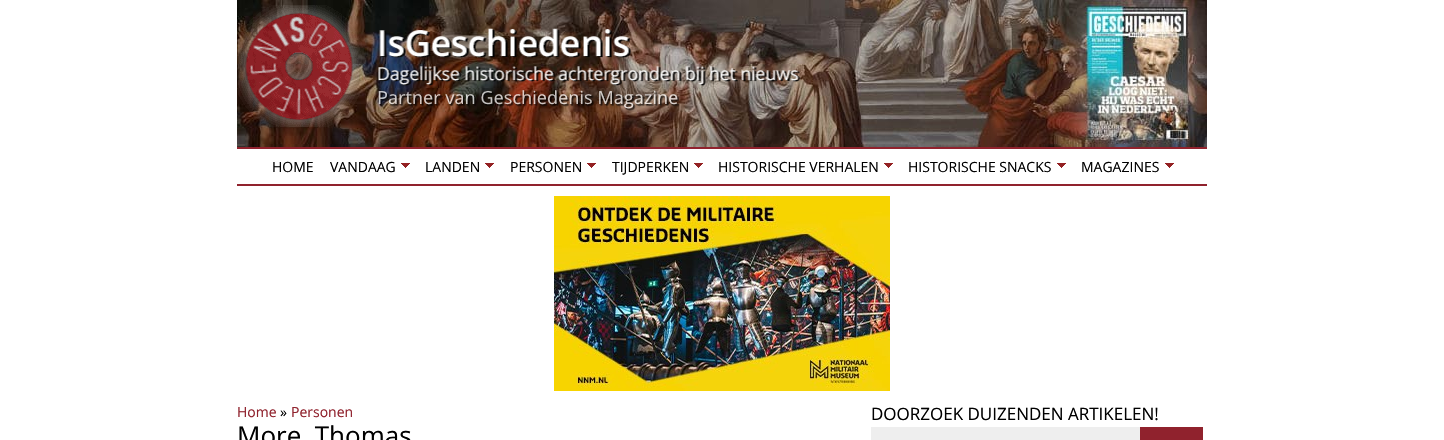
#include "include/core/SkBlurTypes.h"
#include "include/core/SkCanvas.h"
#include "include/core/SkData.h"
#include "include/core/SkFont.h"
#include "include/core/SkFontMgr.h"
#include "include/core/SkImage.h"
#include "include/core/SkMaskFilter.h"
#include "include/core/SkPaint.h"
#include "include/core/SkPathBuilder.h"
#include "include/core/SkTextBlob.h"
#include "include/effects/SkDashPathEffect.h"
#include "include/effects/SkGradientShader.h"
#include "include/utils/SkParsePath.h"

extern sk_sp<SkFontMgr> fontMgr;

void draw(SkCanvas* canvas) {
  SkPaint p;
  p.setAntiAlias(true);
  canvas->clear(SK_ColorWHITE);
  canvas->drawImageRect(SkImages::DeferredFromEncodedData(SkData::MakeFromFileName("images/1.png")), SkRect::MakeLTRB(237, 0, 1207, 147), SkSamplingOptions());
  canvas->drawImageRect(SkImages::DeferredFromEncodedData(SkData::MakeFromFileName("images/2.png")), SkRect::MakeLTRB(237, 5, 801, 127), SkSamplingOptions());
  p.setColor(SkColorSetRGB(144, 34, 45));
  canvas->drawRect(SkRect::MakeLTRB(237, 147, 1207, 149), p);
  canvas->drawRect(SkRect::MakeLTRB(237, 184, 1207, 186), p);
  canvas->drawImageRect(SkImages::DeferredFromEncodedData(SkData::MakeFromFileName("images/3.png")), SkRect::MakeLTRB(401, 163, 410, 168), SkSamplingOptions());
  canvas->drawImageRect(SkImages::DeferredFromEncodedData(SkData::MakeFromFileName("images/3.png")), SkRect::MakeLTRB(485, 163, 494, 168), SkSamplingOptions());
  canvas->drawImageRect(SkImages::DeferredFromEncodedData(SkData::MakeFromFileName("images/3.png")), SkRect::MakeLTRB(587, 163, 596, 168), SkSamplingOptions());
  canvas->drawImageRect(SkImages::DeferredFromEncodedData(SkData::MakeFromFileName("images/3.png")), SkRect::MakeLTRB(694, 163, 703, 168), SkSamplingOptions());
  canvas->drawImageRect(SkImages::DeferredFromEncodedData(SkData::MakeFromFileName("images/3.png")), SkRect::MakeLTRB(884, 163, 893, 168), SkSamplingOptions());
  canvas->drawImageRect(SkImages::DeferredFromEncodedData(SkData::MakeFromFileName("images/3.png")), SkRect::MakeLTRB(1057, 163, 1066, 168), SkSamplingOptions());
  canvas->drawImageRect(SkImages::DeferredFromEncodedData(SkData::MakeFromFileName("images/3.png")), SkRect::MakeLTRB(1165, 163, 1174, 168), SkSamplingOptions());
  canvas->drawImageRect(SkImages::DeferredFromEncodedData(SkData::MakeFromFileName("images/4.png")), SkRect::MakeLTRB(554, 196, 890, 391), SkSamplingOptions());
  p.setColor(SkColorSetRGB(238, 238, 238));
  canvas->drawRect(SkRect::MakeLTRB(871, 427, 1140, 440), p);
  p.setColor(SkColorSetRGB(144, 34, 45));
  canvas->drawRect(SkRect::MakeLTRB(1140, 427, 1203, 440), p);
  SkFont font1(fontMgr->matchFamilyStyle("Open Sans", SkFontStyle::Normal()), 14);
  font1.setSubpixel(true);
  p.setColor(SK_ColorBLACK);
  canvas->drawString("HOME", 272, 172, font1, p);
  canvas->drawString("VANDAAG", 330, 172, font1, p);
  canvas->drawString("LANDEN", 425, 172, font1, p);
  canvas->drawString("PERSONEN", 510, 172, font1, p);
  canvas->drawString("TIJDPERKEN", 612, 172, font1, p);
  canvas->drawString("HISTORISCHE VERHALEN", 718, 172, font1, p);
  canvas->drawString("HISTORISCHE SNACKS", 908, 172, font1, p);
  canvas->drawString("MAGAZINES", 1081, 172, font1, p);
  p.setColor(SkColorSetRGB(144, 34, 45));
  canvas->drawString("Home", 237, 417, font1, p);
  p.setColor(SK_ColorBLACK);
  canvas->drawString("»", 280, 417, font1, p);
  p.setColor(SkColorSetRGB(144, 34, 45));
  canvas->drawString("Personen", 291, 417, font1, p);
  SkFont font2(fontMgr->matchFamilyStyle("Open Sans", SkFontStyle::Normal()), 26);
  font2.setSubpixel(true);
  p.setColor(SK_ColorBLACK);
  canvas->drawString("More, Thomas", 237, 445, font2, p);
  SkFont font3(fontMgr->matchFamilyStyle("Open Sans", SkFontStyle::Normal()), 17);
  font3.setSubpixel(true);
  canvas->drawString("DOORZOEK DUIZENDEN ARTIKELEN!", 871, 420, font3, p);
}
